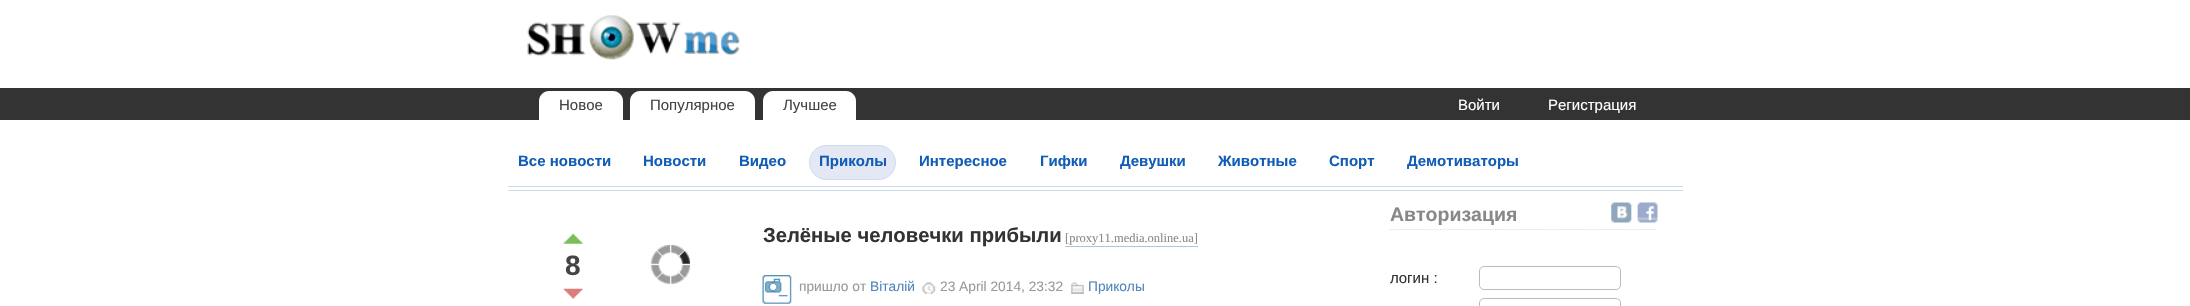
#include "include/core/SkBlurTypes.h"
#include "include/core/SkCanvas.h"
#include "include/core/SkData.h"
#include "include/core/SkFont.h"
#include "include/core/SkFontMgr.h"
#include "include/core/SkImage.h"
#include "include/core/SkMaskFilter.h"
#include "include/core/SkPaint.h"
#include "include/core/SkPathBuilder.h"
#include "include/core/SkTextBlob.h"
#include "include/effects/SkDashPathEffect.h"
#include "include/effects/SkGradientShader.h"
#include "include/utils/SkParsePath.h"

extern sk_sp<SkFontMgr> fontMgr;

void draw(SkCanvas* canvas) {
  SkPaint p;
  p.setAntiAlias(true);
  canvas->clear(SK_ColorWHITE);
  canvas->drawImageRect(SkImages::DeferredFromEncodedData(SkData::MakeFromFileName("images/1.png")), SkRect::MakeLTRB(527, 15, 740, 60), SkSamplingOptions());
  p.setColor(SkColorSetRGB(51, 51, 51));
  canvas->drawRect(SkRect::MakeLTRB(0, 88, 2190, 120), p);
  p.setColor(SK_ColorWHITE);
  canvas->drawPath(SkPathBuilder().moveTo(549, 91).lineTo(613, 91).cubicTo(618.5f, 91, 623, 95.5f, 623, 101).lineTo(623, 120).lineTo(539, 120).lineTo(539, 101).cubicTo(539, 95.5f, 543.5f, 91, 549, 91).close().detach(), p);
  canvas->drawPath(SkPathBuilder().moveTo(640, 91).lineTo(745, 91).cubicTo(750.5f, 91, 755, 95.5f, 755, 101).lineTo(755, 120).lineTo(630, 120).lineTo(630, 101).cubicTo(630, 95.5f, 634.5f, 91, 640, 91).close().detach(), p);
  canvas->drawPath(SkPathBuilder().moveTo(773, 91).lineTo(846, 91).cubicTo(851.5f, 91, 856, 95.5f, 856, 101).lineTo(856, 120).lineTo(763, 120).lineTo(763, 101).cubicTo(763, 95.5f, 767.5f, 91, 773, 91).close().detach(), p);
  p.setColor(SkColorSetRGB(204, 220, 239));
  canvas->drawRect(SkRect::MakeLTRB(508, 190, 1683, 191), p);
  canvas->drawRect(SkRect::MakeLTRB(508, 186, 1683, 187), p);
  p.setColor(SkColorSetRGB(227, 232, 244));
  canvas->drawRoundRect(SkRect::MakeLTRB(809.5f, 145.5f, 895.5f, 179.5f), 17, 17, p);
  p.setStyle(SkPaint::kStroke_Style);
  p.setStrokeWidth(1);
  p.setColor(SkColorSetRGB(204, 220, 239));
  canvas->drawRoundRect(SkRect::MakeLTRB(809.5f, 145.5f, 895.5f, 179.5f), 17, 17, p);
  canvas->drawImageRect(SkImages::DeferredFromEncodedData(SkData::MakeFromFileName("images/2.png")), SkRect::MakeLTRB(563, 233, 583, 244), SkSamplingOptions());
  canvas->drawImageRect(SkImages::DeferredFromEncodedData(SkData::MakeFromFileName("images/3.png")), SkRect::MakeLTRB(563, 288, 583, 299), SkSamplingOptions());
  p.setStyle(SkPaint::kFill_Style);
  p.setColor(SkColorSetRGB(174, 195, 231));
  canvas->drawRect(SkRect::MakeLTRB(1065, 246, 1198, 247), p);
  canvas->drawImageRect(SkImages::DeferredFromEncodedData(SkData::MakeFromFileName("images/4.png")), SkRect::MakeLTRB(651, 245, 690, 284), SkSamplingOptions());
  canvas->drawImageRect(SkImages::DeferredFromEncodedData(SkData::MakeFromFileName("images/5.png")), SkRect::MakeLTRB(762, 275, 792, 304), SkSamplingOptions());
  canvas->drawImageRect(SkImages::DeferredFromEncodedData(SkData::MakeFromFileName("images/6.png")), SkRect::MakeLTRB(922, 282, 936, 294), SkSamplingOptions());
  canvas->drawImageRect(SkImages::DeferredFromEncodedData(SkData::MakeFromFileName("images/7.png")), SkRect::MakeLTRB(1071, 282, 1084, 294), SkSamplingOptions());
  p.setStyle(SkPaint::kStroke_Style);
  p.setStrokeWidth(1.2f);
  p.setColor(SkColorSetRGB(221, 221, 221));
  p.setPathEffect(SkDashPathEffect::Make({{1.25f, 1.25f}}, 0));
  canvas->drawPath(SkPathBuilder().moveTo(1390, 229.5f).lineTo(1657.5f, 229.5f).detach(), p);
  p.setPathEffect(nullptr);
  canvas->drawImageRect(SkImages::DeferredFromEncodedData(SkData::MakeFromFileName("images/9.png")), SkRect::MakeLTRB(1637, 202, 1658, 223), SkSamplingOptions());
  canvas->drawImageRect(SkImages::DeferredFromEncodedData(SkData::MakeFromFileName("images/8.png")), SkRect::MakeLTRB(1611, 202, 1638, 223), SkSamplingOptions());
  p.setStrokeWidth(1);
  p.setColor(SkColorSetRGB(187, 187, 187));
  canvas->drawRoundRect(SkRect::MakeLTRB(1479.5f, 266.5f, 1620.5f, 289.5f), 4.5f, 4.5f, p);
  canvas->drawRoundRect(SkRect::MakeLTRB(1479.5f, 298.5f, 1620.5f, 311.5f), 4.5f, 4.5f, p);
  SkFont font1(fontMgr->matchFamilyStyle("Liberation Sans", SkFontStyle::Normal()), 15);
  font1.setSubpixel(true);
  p.setStyle(SkPaint::kFill_Style);
  p.setColor(SkColorSetRGB(68, 68, 68));
  canvas->drawString("Новое", 559, 110, font1, p);
  canvas->drawString("Популярное", 650, 110, font1, p);
  canvas->drawString("Лучшее", 783, 110, font1, p);
  p.setColor(SK_ColorWHITE);
  canvas->drawString("Войти", 1458, 110, font1, p);
  canvas->drawString("Регистрация", 1548, 110, font1, p);
  SkFont font2(fontMgr->matchFamilyStyle("Liberation Sans", SkFontStyle::Bold()), 15);
  font2.setSubpixel(true);
  p.setColor(SkColorSetRGB(16, 92, 182));
  canvas->drawString("Все новости", 518, 166, font2, p);
  canvas->drawString("Новости", 643, 166, font2, p);
  canvas->drawString("Видео", 739, 166, font2, p);
  canvas->drawString("Приколы", 819, 166, font2, p);
  canvas->drawString("Интересное", 919, 166, font2, p);
  canvas->drawString("Гифки", 1040, 166, font2, p);
  canvas->drawString("Девушки", 1120, 166, font2, p);
  canvas->drawString("Животные", 1218, 166, font2, p);
  canvas->drawString("Спорт", 1329, 166, font2, p);
  canvas->drawString("Демотиваторы", 1407, 166, font2, p);
  SkFont font3(fontMgr->matchFamilyStyle("Liberation Sans", SkFontStyle::Bold()), 28);
  font3.setSubpixel(true);
  p.setColor(SkColorSetRGB(68, 68, 68));
  canvas->drawString("8", 565, 275, font3, p);
  SkFont font4(fontMgr->matchFamilyStyle("Liberation Sans", SkFontStyle::Bold()), 20.25f);
  font4.setSubpixel(true);
  p.setColor(SkColorSetRGB(51, 51, 51));
  canvas->drawString("Зелёные человечки прибыли", 763, 242, font4, p);
  SkFont font5(fontMgr->matchFamilyStyle("Liberation Serif", SkFontStyle::Normal()), 12.5f);
  font5.setSubpixel(true);
  p.setColor(SkColorSetRGB(136, 136, 136));
  canvas->drawString("[proxy11.media.online.ua]", 1065, 242, font5, p);
  SkFont font6(fontMgr->matchFamilyStyle("Liberation Sans", SkFontStyle::Normal()), 13.75f);
  font6.setSubpixel(true);
  p.setColor(SkColorSetRGB(153, 153, 153));
  canvas->drawString("пришло от", 799, 291, font6, p);
  p.setColor(SkColorSetRGB(80, 134, 188));
  canvas->drawString("Віталій", 870, 291, font6, p);
  p.setColor(SkColorSetRGB(153, 153, 153));
  canvas->drawString("23 April 2014, 23:32", 940, 291, font6, p);
  p.setColor(SkColorSetRGB(80, 134, 188));
  canvas->drawString("Приколы", 1088, 291, font6, p);
  SkFont font7(fontMgr->matchFamilyStyle("Liberation Sans", SkFontStyle::Bold()), 19.5f);
  font7.setSubpixel(true);
  p.setColor(SkColorSetRGB(136, 136, 136));
  canvas->drawString("Авторизация", 1390, 221, font7, p);
  p.setColor(SkColorSetRGB(51, 51, 51));
  canvas->drawString("логин :", 1390, 283, font1, p);
}
